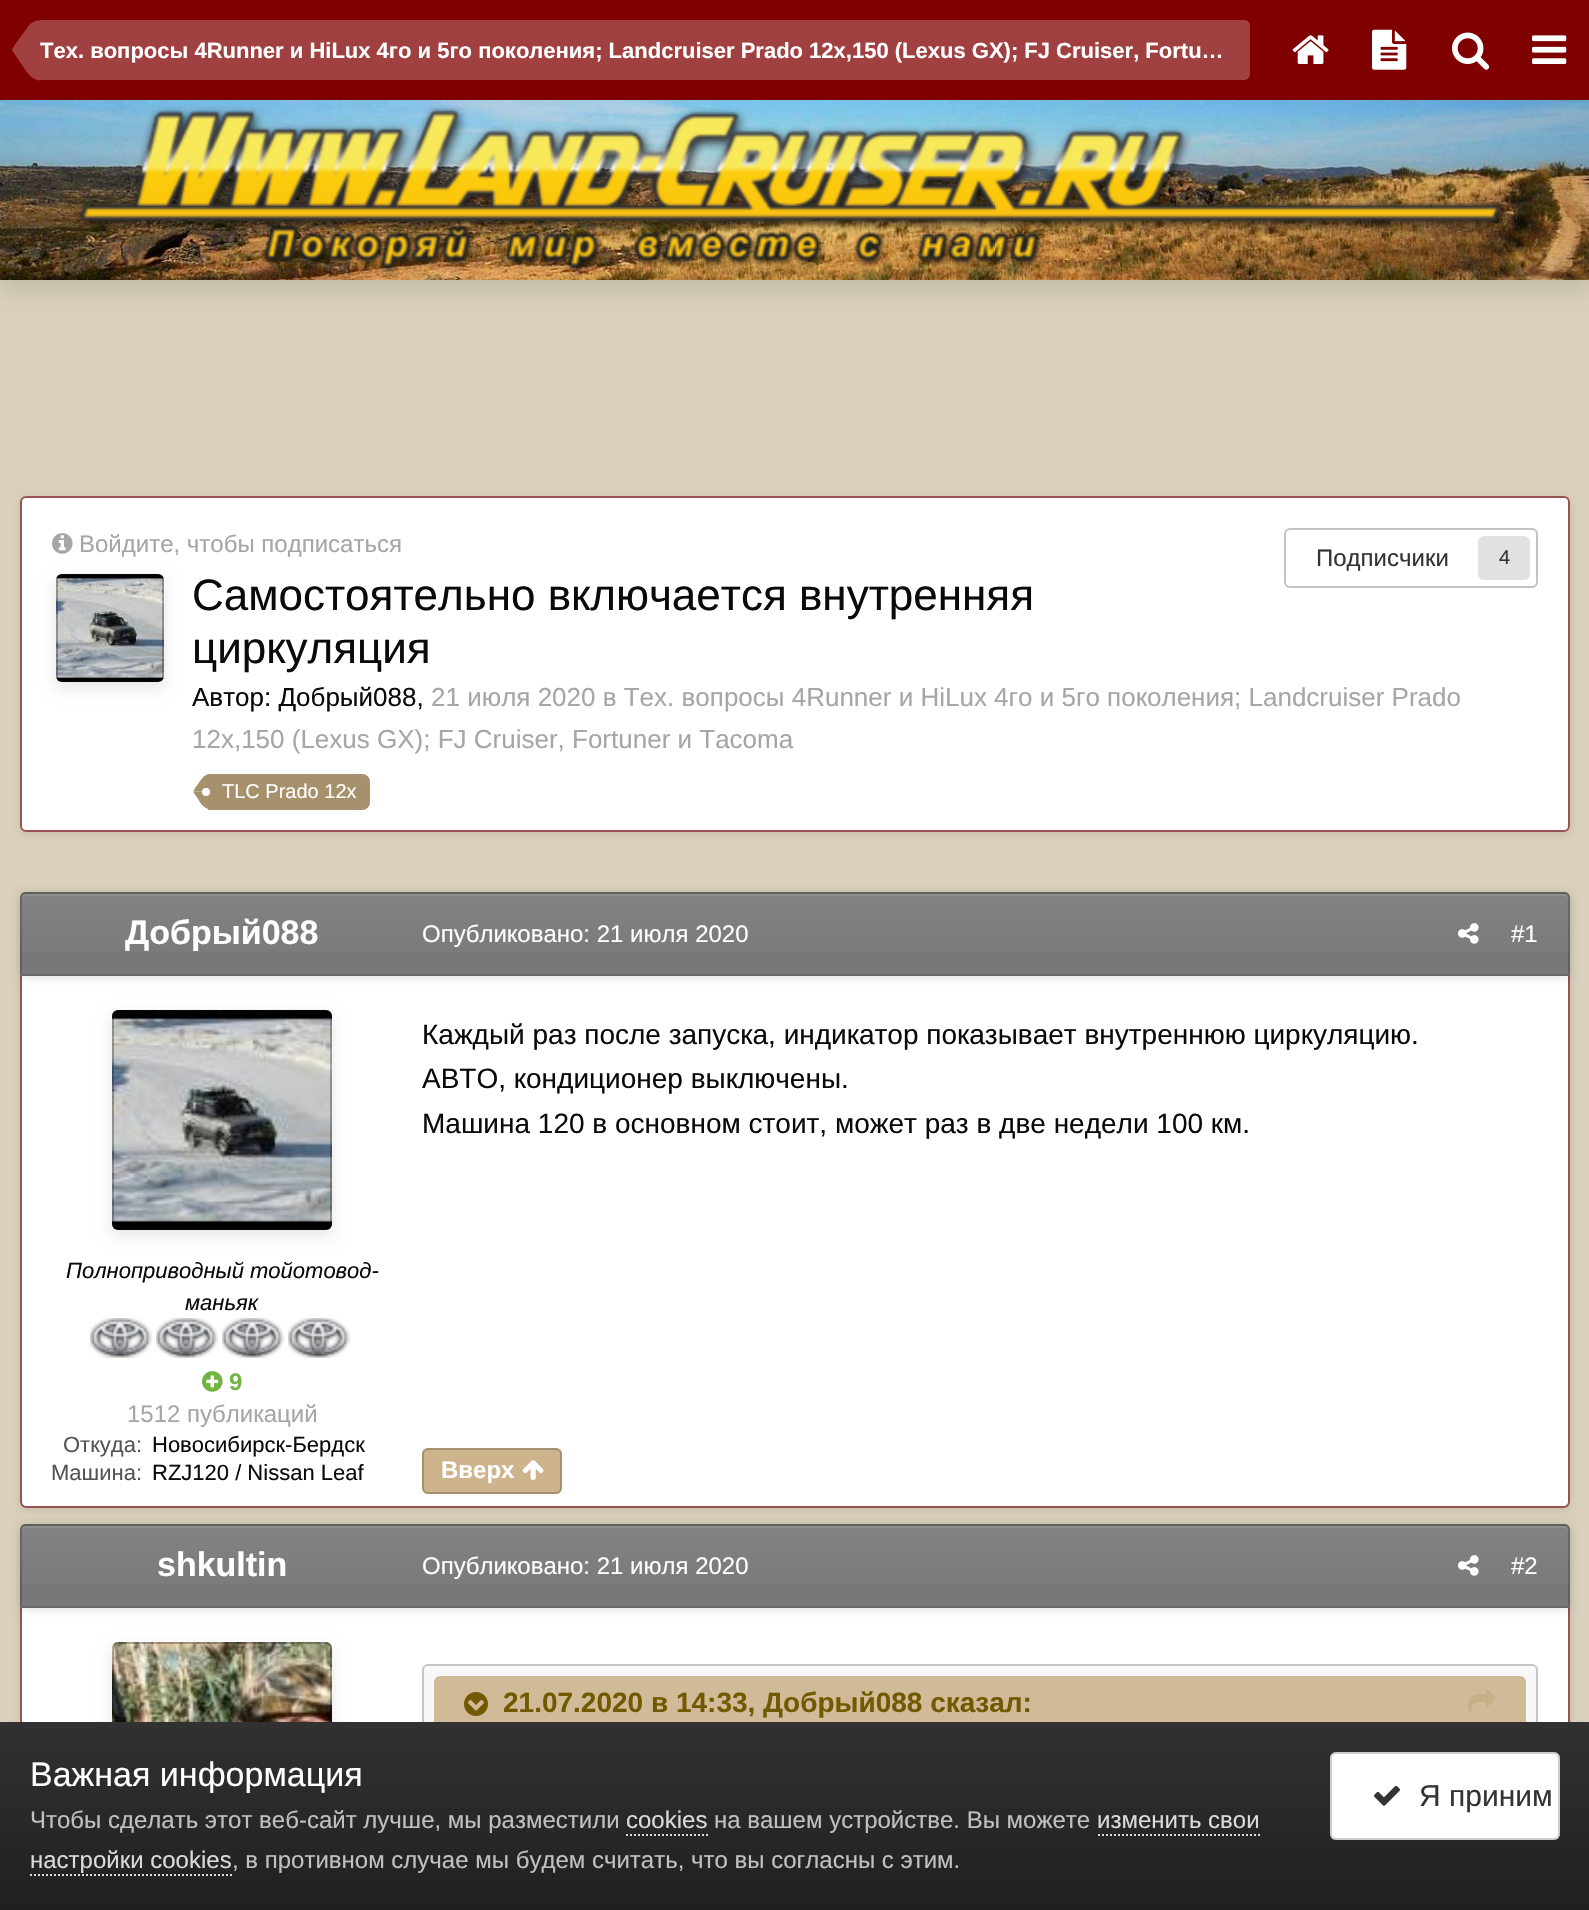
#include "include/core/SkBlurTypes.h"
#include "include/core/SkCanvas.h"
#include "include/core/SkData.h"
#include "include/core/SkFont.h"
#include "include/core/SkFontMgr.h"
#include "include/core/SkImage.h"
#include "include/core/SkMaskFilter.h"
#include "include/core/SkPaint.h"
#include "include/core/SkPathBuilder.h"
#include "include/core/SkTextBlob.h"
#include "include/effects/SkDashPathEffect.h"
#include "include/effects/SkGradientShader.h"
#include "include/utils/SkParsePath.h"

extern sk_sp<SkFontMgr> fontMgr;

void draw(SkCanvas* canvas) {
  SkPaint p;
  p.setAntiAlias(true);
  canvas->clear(SkColorSetRGB(217, 209, 188));
  p.setColor(SkColorSetARGB(26, 0, 0, 0));
  p.setMaskFilter(SkMaskFilter::MakeBlur(kNormal_SkBlurStyle, 10));
  canvas->drawRect(SkRect::MakeLTRB(0, 112, 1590, 292), p);
  p.setMaskFilter(nullptr);
  p.setColor(SkColorSetRGB(128, 0, 0));
  canvas->drawRect(SkRect::MakeLTRB(0, 0, 1589, 100), p);
  p.setColor(SkColorSetRGB(160, 64, 64));
  canvas->drawPath(SkPathBuilder().moveTo(40, 20).lineTo(1244, 20).cubicTo(1247.5f, 20, 1250, 22.5f, 1250, 26).lineTo(1250, 74).cubicTo(1250, 77.5f, 1247.5f, 80, 1244, 80).lineTo(40, 80).close().detach(), p);
  canvas->drawPath(SkPathBuilder().moveTo(40, 50).lineTo(40, 80.5f).cubicTo(35.5f, 80, 30.5f, 77.5f, 26, 71).lineTo(12, 50).close().moveTo(40, 50).lineTo(12, 50).cubicTo(12, 48.5f, 23, 33.5f, 24.5f, 31.5f).lineTo(29, 25).lineTo(30.5f, 24).cubicTo(33, 21.5f, 36.5f, 20, 40, 20.5f).close().detach(), p);
  canvas->drawImageRect(SkImages::DeferredFromEncodedData(SkData::MakeFromFileName("images/1.png")), SkRect::MakeLTRB(1292, 35, 1329, 64), SkSamplingOptions());
  canvas->drawImageRect(SkImages::DeferredFromEncodedData(SkData::MakeFromFileName("images/2.png")), SkRect::MakeLTRB(1372, 29, 1407, 70), SkSamplingOptions());
  canvas->drawImageRect(SkImages::DeferredFromEncodedData(SkData::MakeFromFileName("images/3.png")), SkRect::MakeLTRB(1452, 32, 1490, 70), SkSamplingOptions());
  canvas->drawImageRect(SkImages::DeferredFromEncodedData(SkData::MakeFromFileName("images/4.png")), SkRect::MakeLTRB(1532, 35, 1567, 64), SkSamplingOptions());
  canvas->drawImageRect(SkImages::DeferredFromEncodedData(SkData::MakeFromFileName("images/5.png")), SkRect::MakeLTRB(0, 100, 1589, 280), SkSamplingOptions());
  canvas->drawImageRect(SkImages::DeferredFromEncodedData(SkData::MakeFromFileName("images/6.png")), SkRect::MakeLTRB(76, 105, 1510, 276), SkSamplingOptions());
  p.setColor(SkColorSetARGB(26, 0, 0, 0));
  p.setMaskFilter(SkMaskFilter::MakeBlur(kNormal_SkBlurStyle, 4));
  canvas->drawRoundRect(SkRect::MakeLTRB(20, 498, 1570, 834), 6, 6, p);
  p.setMaskFilter(nullptr);
  p.setColor(SK_ColorWHITE);
  canvas->drawRoundRect(SkRect::MakeLTRB(20, 496, 1570, 832), 6, 6, p);
  p.setStyle(SkPaint::kStroke_Style);
  p.setStrokeWidth(2);
  p.setColor(SkColorSetARGB(173, 103, 0, 0));
  canvas->drawRoundRect(SkRect::MakeLTRB(21, 497, 1569, 831), 5, 5, p);
  canvas->drawImageRect(SkImages::DeferredFromEncodedData(SkData::MakeFromFileName("images/7.png")), SkRect::MakeLTRB(52, 533, 73, 554), SkSamplingOptions());
  canvas->drawImageRect(SkImages::DeferredFromEncodedData(SkData::MakeFromFileName("images/8.png")), SkRect::MakeLTRB(56, 574, 164, 682), SkSamplingOptions());
  canvas->save();
  canvas->clipPath(SkPathBuilder(SkPathFillType::kEvenOdd).moveTo(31, 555).lineTo(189, 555).lineTo(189, 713).lineTo(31, 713).close().moveTo(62, 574).lineTo(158, 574).cubicTo(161.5f, 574, 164, 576.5f, 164, 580).lineTo(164, 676).cubicTo(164, 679.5f, 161.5f, 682, 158, 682).lineTo(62, 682).cubicTo(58.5f, 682, 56, 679.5f, 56, 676).lineTo(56, 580).cubicTo(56, 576.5f, 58.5f, 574, 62, 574).close().detach(), true);
  p.setStyle(SkPaint::kFill_Style);
  p.setColor(SkColorSetARGB(26, 0, 0, 0));
  p.setMaskFilter(SkMaskFilter::MakeBlur(kNormal_SkBlurStyle, 8));
  canvas->drawRoundRect(SkRect::MakeLTRB(56, 580, 164, 688), 6, 6, p);
  p.setMaskFilter(nullptr);
  canvas->restore();
  p.setStyle(SkPaint::kStroke_Style);
  p.setColor(SkColorSetARGB(77, 10, 10, 10));
  canvas->drawRoundRect(SkRect::MakeLTRB(57, 575, 163, 681), 5, 5, p);
  p.setStyle(SkPaint::kFill_Style);
  p.setColor(SkColorSetRGB(167, 145, 108));
  canvas->drawPath(SkPathBuilder().moveTo(208, 774).lineTo(362, 774).cubicTo(366.5f, 774, 370, 777.5f, 370, 782).lineTo(370, 802).cubicTo(370, 806.5f, 366.5f, 810, 362, 810).lineTo(208, 810).close().detach(), p);
  canvas->drawPath(SkPathBuilder().moveTo(210, 809).cubicTo(203, 809, 199.5f, 801.5f, 196.5f, 796.5f).cubicTo(195.5f, 795, 193.5f, 793.5f, 193.5f, 791.5f).lineTo(210, 791.5f).lineTo(209.5f, 792).lineTo(210, 792).close().detach(), p);
  canvas->drawPath(SkPathBuilder().moveTo(202, 778.5f).cubicTo(204, 775.5f, 207, 774, 210, 774).lineTo(210, 791.5f).lineTo(209.5f, 791).lineTo(210, 791.5f).lineTo(193.5f, 791.5f).cubicTo(193.5f, 789.5f, 200.5f, 780.5f, 202, 778.5f).close().detach(), p);
  p.setColor(SK_ColorWHITE);
  canvas->drawCircle(206, 792, 4, p);
  p.setColor(SkColorSetARGB(26, 0, 0, 0));
  p.setMaskFilter(SkMaskFilter::MakeBlur(kNormal_SkBlurStyle, 4));
  canvas->drawRoundRect(SkRect::MakeLTRB(20, 894, 1570, 1510), 6, 6, p);
  p.setMaskFilter(nullptr);
  p.setColor(SK_ColorWHITE);
  canvas->drawRoundRect(SkRect::MakeLTRB(20, 892, 1570, 1508), 6, 6, p);
  p.setColor(SkColorSetARGB(173, 103, 0, 0));
  canvas->drawPath(SkPathBuilder(SkPathFillType::kEvenOdd).moveTo(26, 892).lineTo(1564, 892).cubicTo(1567, 892, 1570, 895, 1570, 898).lineTo(1570, 1502).cubicTo(1570, 1505, 1567, 1508, 1564, 1508).lineTo(26, 1508).cubicTo(23, 1508, 20, 1505, 20, 1502).lineTo(20, 898).cubicTo(20, 895, 23, 892, 26, 892).close().moveTo(26, 892).lineTo(1564, 892).cubicTo(1566, 892, 1568, 895, 1568, 898).lineTo(1568, 1502).cubicTo(1568, 1504, 1566, 1506, 1564, 1506).lineTo(26, 1506).cubicTo(24, 1506, 22, 1504, 22, 1502).lineTo(22, 898).cubicTo(22, 895, 24, 892, 26, 892).close().detach(), p);
  p.setColor(SkColorSetARGB(26, 0, 0, 0));
  p.setMaskFilter(SkMaskFilter::MakeBlur(kNormal_SkBlurStyle, 4));
  canvas->drawRoundRect(SkRect::MakeLTRB(20, 894, 1570, 978), 6, 6, p);
  p.setMaskFilter(nullptr);
  p.setColor(SkColorSetRGB(120, 120, 120));
  canvas->drawPath(SkPathBuilder().moveTo(26, 892).lineTo(1564, 892).cubicTo(1567.5f, 892, 1570, 894.5f, 1570, 898).lineTo(1570, 976).lineTo(20, 976).lineTo(20, 898).cubicTo(20, 894.5f, 22.5f, 892, 26, 892).close().detach(), p);
  {
    const SkColor colors[] = {SkColorSetARGB(20, 255, 255, 255), SkColorSetARGB(0, 255, 255, 255)};
    const float stops[] = {0, 1};
    const SkPoint ends[] = {{795, 894}, {795, 974}};
    p.setShader(SkGradientShader::MakeLinear(ends, colors, stops, 2, SkTileMode::kClamp));
    p.setAlpha(255);
  }
  canvas->drawRect(SkRect::MakeLTRB(20, 894, 1570, 952), p);
  {
    const SkColor colors[] = {SkColorSetRGB(131, 131, 131), SkColorSetRGB(120, 120, 120)};
    const float stops[] = {0, 1};
    const SkPoint ends[] = {{795, 974}, {795, 1054}};
    p.setShader(SkGradientShader::MakeLinear(ends, colors, stops, 2, SkTileMode::kClamp));
    p.setAlpha(255);
  }
  canvas->drawRect(SkRect::MakeLTRB(20, 974, 1570, 976), p);
  p.setShader(nullptr);
  p.setColor(SkColorSetRGB(143, 143, 143));
  canvas->drawPath(SkPathBuilder().moveTo(26, 896).lineTo(1564, 896).cubicTo(1566, 896, 1568, 898, 1568, 900).cubicTo(1568, 897, 1568, 894, 1564, 894).lineTo(26, 894).cubicTo(22, 894, 22, 897, 22, 900).cubicTo(22, 898, 24, 896, 26, 896).close().detach(), p);
  p.setStyle(SkPaint::kStroke_Style);
  p.setColor(SkColorSetARGB(51, 0, 0, 0));
  canvas->drawPath(SkPathBuilder().moveTo(26, 893).lineTo(1564, 893).cubicTo(1567, 893, 1569, 895, 1569, 898).lineTo(1569, 975).lineTo(21, 975).lineTo(21, 898).cubicTo(21, 895, 23, 893, 26, 893).close().detach(), p);
  canvas->drawImageRect(SkImages::DeferredFromEncodedData(SkData::MakeFromFileName("images/9.png")), SkRect::MakeLTRB(112, 1010, 332, 1230), SkSamplingOptions());
  canvas->save();
  canvas->clipPath(SkPathBuilder(SkPathFillType::kEvenOdd).moveTo(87, 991).lineTo(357, 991).lineTo(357, 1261).lineTo(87, 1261).close().moveTo(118, 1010).lineTo(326, 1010).cubicTo(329.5f, 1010, 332, 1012.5f, 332, 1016).lineTo(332, 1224).cubicTo(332, 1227.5f, 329.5f, 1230, 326, 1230).lineTo(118, 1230).cubicTo(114.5f, 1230, 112, 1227.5f, 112, 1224).lineTo(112, 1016).cubicTo(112, 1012.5f, 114.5f, 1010, 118, 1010).close().detach(), true);
  p.setStyle(SkPaint::kFill_Style);
  p.setColor(SkColorSetARGB(26, 0, 0, 0));
  p.setMaskFilter(SkMaskFilter::MakeBlur(kNormal_SkBlurStyle, 8));
  canvas->drawRoundRect(SkRect::MakeLTRB(112, 1016, 332, 1236), 6, 6, p);
  p.setMaskFilter(nullptr);
  canvas->restore();
  p.setStyle(SkPaint::kStroke_Style);
  p.setColor(SkColorSetARGB(77, 10, 10, 10));
  canvas->drawRoundRect(SkRect::MakeLTRB(113, 1011, 331, 1229), 5, 5, p);
  canvas->drawImageRect(SkImages::DeferredFromEncodedData(SkData::MakeFromFileName("images/10.png")), SkRect::MakeLTRB(90, 1318, 152, 1358), SkSamplingOptions());
  canvas->drawImageRect(SkImages::DeferredFromEncodedData(SkData::MakeFromFileName("images/10.png")), SkRect::MakeLTRB(156, 1318, 218, 1358), SkSamplingOptions());
  canvas->drawImageRect(SkImages::DeferredFromEncodedData(SkData::MakeFromFileName("images/10.png")), SkRect::MakeLTRB(222, 1318, 284, 1358), SkSamplingOptions());
  canvas->drawImageRect(SkImages::DeferredFromEncodedData(SkData::MakeFromFileName("images/10.png")), SkRect::MakeLTRB(288, 1318, 350, 1358), SkSamplingOptions());
  canvas->drawImageRect(SkImages::DeferredFromEncodedData(SkData::MakeFromFileName("images/11.png")), SkRect::MakeLTRB(202, 1371, 223, 1392), SkSamplingOptions());
  canvas->drawImageRect(SkImages::DeferredFromEncodedData(SkData::MakeFromFileName("images/12.png")), SkRect::MakeLTRB(1458, 923, 1479, 944), SkSamplingOptions());
  p.setStyle(SkPaint::kFill_Style);
  p.setColor(SkColorSetRGB(206, 180, 140));
  canvas->drawRoundRect(SkRect::MakeLTRB(422, 1448, 562, 1494), 6, 6, p);
  canvas->drawImageRect(SkImages::DeferredFromEncodedData(SkData::MakeFromFileName("images/13.png")), SkRect::MakeLTRB(522, 1460, 544, 1480), SkSamplingOptions());
  p.setStyle(SkPaint::kStroke_Style);
  p.setColor(SkColorSetARGB(51, 0, 0, 0));
  canvas->drawRoundRect(SkRect::MakeLTRB(423, 1449, 561, 1493), 5, 5, p);
  p.setStyle(SkPaint::kFill_Style);
  p.setColor(SkColorSetARGB(26, 0, 0, 0));
  p.setMaskFilter(SkMaskFilter::MakeBlur(kNormal_SkBlurStyle, 4));
  canvas->drawRoundRect(SkRect::MakeLTRB(20, 1526, 1570, 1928), 6, 6, p);
  p.setMaskFilter(nullptr);
  p.setColor(SK_ColorWHITE);
  canvas->drawRoundRect(SkRect::MakeLTRB(20, 1524, 1570, 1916), 6, 6, p);
  p.setColor(SkColorSetARGB(173, 103, 0, 0));
  canvas->drawPath(SkPathBuilder(SkPathFillType::kEvenOdd).moveTo(26, 1524).lineTo(1564, 1524).cubicTo(1567, 1524, 1570, 1527, 1570, 1530).lineTo(1570, 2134).cubicTo(1570, 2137, 1567, 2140, 1564, 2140).lineTo(26, 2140).cubicTo(23, 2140, 20, 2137, 20, 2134).lineTo(20, 1530).cubicTo(20, 1527, 23, 1524, 26, 1524).close().moveTo(26, 1524).lineTo(1564, 1524).cubicTo(1566, 1524, 1568, 1527, 1568, 1530).lineTo(1568, 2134).cubicTo(1568, 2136, 1566, 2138, 1564, 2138).lineTo(26, 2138).cubicTo(24, 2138, 22, 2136, 22, 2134).lineTo(22, 1530).cubicTo(22, 1527, 24, 1524, 26, 1524).close().detach(), p);
  p.setColor(SkColorSetARGB(26, 0, 0, 0));
  p.setMaskFilter(SkMaskFilter::MakeBlur(kNormal_SkBlurStyle, 4));
  canvas->drawRoundRect(SkRect::MakeLTRB(20, 1526, 1570, 1610), 6, 6, p);
  p.setMaskFilter(nullptr);
  p.setColor(SkColorSetRGB(120, 120, 120));
  canvas->drawPath(SkPathBuilder().moveTo(26, 1524).lineTo(1564, 1524).cubicTo(1567.5f, 1524, 1570, 1526.5f, 1570, 1530).lineTo(1570, 1608).lineTo(20, 1608).lineTo(20, 1530).cubicTo(20, 1526.5f, 22.5f, 1524, 26, 1524).close().detach(), p);
  {
    const SkColor colors[] = {SkColorSetARGB(20, 255, 255, 255), SkColorSetARGB(0, 255, 255, 255)};
    const float stops[] = {0, 1};
    const SkPoint ends[] = {{795, 1526}, {795, 1606}};
    p.setShader(SkGradientShader::MakeLinear(ends, colors, stops, 2, SkTileMode::kClamp));
    p.setAlpha(255);
  }
  canvas->drawRect(SkRect::MakeLTRB(20, 1526, 1570, 1584), p);
  {
    const SkColor colors[] = {SkColorSetRGB(131, 131, 131), SkColorSetRGB(120, 120, 120)};
    const float stops[] = {0, 1};
    const SkPoint ends[] = {{795, 1606}, {795, 1686}};
    p.setShader(SkGradientShader::MakeLinear(ends, colors, stops, 2, SkTileMode::kClamp));
    p.setAlpha(255);
  }
  canvas->drawRect(SkRect::MakeLTRB(20, 1606, 1570, 1608), p);
  p.setShader(nullptr);
  p.setColor(SkColorSetRGB(143, 143, 143));
  canvas->drawPath(SkPathBuilder().moveTo(26, 1528).lineTo(1564, 1528).cubicTo(1566, 1528, 1568, 1530, 1568, 1532).cubicTo(1568, 1529, 1568, 1526, 1564, 1526).lineTo(26, 1526).cubicTo(22, 1526, 22, 1529, 22, 1532).cubicTo(22, 1530, 24, 1528, 26, 1528).close().detach(), p);
  p.setStyle(SkPaint::kStroke_Style);
  p.setColor(SkColorSetARGB(51, 0, 0, 0));
  canvas->drawPath(SkPathBuilder().moveTo(26, 1525).lineTo(1564, 1525).cubicTo(1567, 1525, 1569, 1527, 1569, 1530).lineTo(1569, 1607).lineTo(21, 1607).lineTo(21, 1530).cubicTo(21, 1527, 23, 1525, 26, 1525).close().detach(), p);
  canvas->drawImageRect(SkImages::DeferredFromEncodedData(SkData::MakeFromFileName("images/14.png")), SkRect::MakeLTRB(112, 1642, 332, 1722), SkSamplingOptions());
  canvas->save();
  canvas->clipPath(SkPathBuilder(SkPathFillType::kEvenOdd).moveTo(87, 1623).lineTo(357, 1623).lineTo(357, 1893).lineTo(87, 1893).close().moveTo(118, 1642).lineTo(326, 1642).cubicTo(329.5f, 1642, 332, 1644.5f, 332, 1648).lineTo(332, 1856).cubicTo(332, 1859.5f, 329.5f, 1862, 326, 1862).lineTo(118, 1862).cubicTo(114.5f, 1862, 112, 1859.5f, 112, 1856).lineTo(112, 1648).cubicTo(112, 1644.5f, 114.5f, 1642, 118, 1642).close().detach(), true);
  p.setStyle(SkPaint::kFill_Style);
  p.setColor(SkColorSetARGB(26, 0, 0, 0));
  p.setMaskFilter(SkMaskFilter::MakeBlur(kNormal_SkBlurStyle, 8));
  canvas->drawRoundRect(SkRect::MakeLTRB(112, 1648, 332, 1868), 6, 6, p);
  p.setMaskFilter(nullptr);
  canvas->restore();
  p.setStyle(SkPaint::kStroke_Style);
  p.setColor(SkColorSetARGB(77, 10, 10, 10));
  canvas->drawRoundRect(SkRect::MakeLTRB(113, 1643, 331, 1861), 5, 5, p);
  canvas->drawImageRect(SkImages::DeferredFromEncodedData(SkData::MakeFromFileName("images/12.png")), SkRect::MakeLTRB(1458, 1555, 1479, 1576), SkSamplingOptions());
  p.setStyle(SkPaint::kFill_Style);
  p.setColor(SkColorSetRGB(248, 248, 248));
  canvas->drawRoundRect(SkRect::MakeLTRB(423, 1665, 1537, 1851), 5, 5, p);
  p.setStyle(SkPaint::kStroke_Style);
  p.setColor(SkColorSetRGB(196, 196, 196));
  canvas->drawRoundRect(SkRect::MakeLTRB(423, 1665, 1537, 1851), 5, 5, p);
  p.setStyle(SkPaint::kFill_Style);
  p.setColor(SkColorSetRGB(208, 186, 152));
  canvas->drawRoundRect(SkRect::MakeLTRB(434, 1676, 1526, 1730), 6, 6, p);
  canvas->drawImageRect(SkImages::DeferredFromEncodedData(SkData::MakeFromFileName("images/15.png")), SkRect::MakeLTRB(464, 1692, 488, 1716), SkSamplingOptions());
  canvas->drawImageRect(SkImages::DeferredFromEncodedData(SkData::MakeFromFileName("images/16.png")), SkRect::MakeLTRB(1468, 1689, 1496, 1714), SkSamplingOptions());
  {
    const SkColor colors[] = {SkColorSetRGB(49, 49, 49), SkColorSetRGB(32, 32, 32)};
    const float stops[] = {0, 1};
    const SkPoint ends[] = {{795, 1722}, {795, 1910}};
    p.setShader(SkGradientShader::MakeLinear(ends, colors, stops, 2, SkTileMode::kClamp));
    p.setAlpha(255);
  }
  canvas->drawRect(SkRect::MakeLTRB(0, 1722, 1589, 1910), p);
  p.setStyle(SkPaint::kStroke_Style);
  p.setShader(nullptr);
  p.setColor(SkColorSetRGB(218, 218, 218));
  p.setPathEffect(SkDashPathEffect::Make({{2, 2}}, 0));
  canvas->drawPath(SkPathBuilder().moveTo(626, 1835).lineTo(708, 1835).detach(), p);
  p.setPathEffect(nullptr);
  p.setPathEffect(SkDashPathEffect::Make({{2, 2}}, 0));
  canvas->drawPath(SkPathBuilder().moveTo(1098, 1835).lineTo(1260, 1835).detach(), p);
  p.setPathEffect(nullptr);
  p.setPathEffect(SkDashPathEffect::Make({{2, 2}}, 0));
  canvas->drawPath(SkPathBuilder().moveTo(30, 1875).lineTo(232, 1875).detach(), p);
  p.setPathEffect(nullptr);
  p.setStyle(SkPaint::kFill_Style);
  p.setColor(SK_ColorWHITE);
  canvas->drawRoundRect(SkRect::MakeLTRB(1330, 1752, 1560, 1840), 6, 6, p);
  canvas->drawImageRect(SkImages::DeferredFromEncodedData(SkData::MakeFromFileName("images/17.png")), SkRect::MakeLTRB(1374, 1785, 1400, 1806), SkSamplingOptions());
  p.setStyle(SkPaint::kStroke_Style);
  p.setColor(SkColorSetARGB(64, 51, 51, 51));
  canvas->drawRoundRect(SkRect::MakeLTRB(1331, 1753, 1559, 1839), 5, 5, p);
  SkFont font1(fontMgr->matchFamilyStyle("Liberation Sans", SkFontStyle::Bold()), 22);
  font1.setSubpixel(true);
  p.setStyle(SkPaint::kFill_Style);
  p.setColor(SK_ColorWHITE);
  canvas->drawString("Тех. вопросы 4Runner и HiLux 4го и 5го поколения; Landсruiser Prado 12x,150 (Lexus GX); FJ Cruiser, Fortu…", 40, 58, font1, p);
  SkFont font2(fontMgr->matchFamilyStyle("Liberation Sans", SkFontStyle::Normal()), 24);
  font2.setSubpixel(true);
  p.setColor(SkColorSetRGB(166, 166, 166));
  canvas->drawString("Войдите, чтобы подписаться", 79, 552, font2, p);
  p.setColor(SkColorSetRGB(51, 51, 51));
  canvas->drawString("Подписчики", 1316, 566, font2, p);
  SkFont font3(fontMgr->matchFamilyStyle("Liberation Sans", SkFontStyle::Normal()), 20);
  font3.setSubpixel(true);
  canvas->drawString("4", 1499, 564, font3, p);
  p.setColor(SkColorSetARGB(38, 51, 51, 51));
  canvas->drawRoundRect(SkRect::MakeLTRB(1478, 536, 1530, 580), 6, 6, p);
  p.setStyle(SkPaint::kStroke_Style);
  p.setColor(SkColorSetRGB(194, 194, 194));
  canvas->drawRoundRect(SkRect::MakeLTRB(1285, 529, 1537, 587), 5, 5, p);
  SkFont font4(fontMgr->matchFamilyStyle("Liberation Sans", SkFontStyle::Normal()), 44);
  font4.setSubpixel(true);
  p.setStyle(SkPaint::kFill_Style);
  p.setColor(SkColorSetRGB(10, 10, 10));
  canvas->drawString("Самостоятельно включается внутренняя", 192, 610, font4, p);
  canvas->drawString("циркуляция", 192, 663, font4, p);
  SkFont font5(fontMgr->matchFamilyStyle("Liberation Sans", SkFontStyle::Normal()), 26);
  font5.setSubpixel(true);
  canvas->drawString("Автор: Добрый088,", 192, 706, font5, p);
  p.setColor(SkColorSetRGB(166, 166, 166));
  canvas->drawString("21 июля 2020 в Тех. вопросы 4Runner и HiLux 4го и 5го поколения; Landсruiser Prado", 431, 706, font5, p);
  canvas->drawString("12x,150 (Lexus GX); FJ Cruiser, Fortuner и Tacoma", 192, 748, font5, p);
  p.setColor(SK_ColorWHITE);
  canvas->drawString("TLC Prado 12x", 222, 798, font3, p);
  SkFont font6(fontMgr->matchFamilyStyle("Liberation Sans", SkFontStyle::Bold()), 34);
  font6.setSubpixel(true);
  canvas->drawString("Добрый088", 125, 944, font6, p);
  SkFont font7(fontMgr->matchFamilyStyle("Liberation Sans", SkFontStyle::Italic()), 22);
  font7.setSubpixel(true);
  p.setColor(SkColorSetRGB(10, 10, 10));
  canvas->drawString("Полноприводный тойотовод-", 66, 1278, font7, p);
  canvas->drawString("маньяк", 185, 1310, font7, p);
  SkFont font8(fontMgr->matchFamilyStyle("Liberation Sans", SkFontStyle::Bold()), 24);
  font8.setSubpixel(true);
  p.setColor(SkColorSetRGB(115, 179, 67));
  canvas->drawString("9", 229, 1390, font8, p);
  p.setColor(SkColorSetRGB(166, 166, 166));
  canvas->drawString("1512 публикаций", 127, 1422, font2, p);
  SkFont font9(fontMgr->matchFamilyStyle("Liberation Sans", SkFontStyle::Normal()), 22);
  font9.setSubpixel(true);
  p.setColor(SkColorSetRGB(84, 84, 84));
  canvas->drawString("Откуда:", 63, 1452, font9, p);
  p.setColor(SkColorSetRGB(10, 10, 10));
  canvas->drawString("Новосибирск-Бердск", 152, 1452, font9, p);
  p.setColor(SkColorSetRGB(84, 84, 84));
  canvas->drawString("Машина:", 51, 1480, font9, p);
  p.setColor(SkColorSetRGB(10, 10, 10));
  canvas->drawString("RZJ120 / Nissan Leaf", 152, 1480, font9, p);
  p.setColor(SK_ColorWHITE);
  canvas->drawString("Опубликовано: 21 июля 2020", 422, 942, font2, p);
  canvas->drawString("#1", 1511, 942, font2, p);
  SkFont font10(fontMgr->matchFamilyStyle("Liberation Sans", SkFontStyle::Normal()), 28);
  font10.setSubpixel(true);
  p.setColor(SkColorSetRGB(10, 10, 10));
  canvas->drawString("Каждый раз после запуска, индикатор показывает внутреннюю циркуляцию.", 422, 1044, font10, p);
  canvas->drawString("АВТО, кондиционер выключены.", 422, 1088, font10, p);
  canvas->drawString("Машина 120 в основном стоит, может раз в две недели 100 км.", 422, 1133, font10, p);
  p.setColor(SK_ColorWHITE);
  canvas->drawString("Вверх", 441, 1478, font8, p);
  canvas->drawString("shkultin", 157, 1576, font6, p);
  canvas->drawString("Опубликовано: 21 июля 2020", 422, 1574, font2, p);
  canvas->drawString("#2", 1511, 1574, font2, p);
  SkFont font11(fontMgr->matchFamilyStyle("Liberation Sans", SkFontStyle::Bold()), 28);
  font11.setSubpixel(true);
  p.setColor(SkColorSetRGB(113, 89, 0));
  canvas->drawString("21.07.2020 в 14:33, Добрый088 сказал:", 503, 1712, font11, p);
  SkFont font12(fontMgr->matchFamilyStyle("Liberation Sans", SkFontStyle::Normal()), 34);
  font12.setSubpixel(true);
  p.setColor(SK_ColorWHITE);
  canvas->drawString("Важная информация", 30, 1786, font12, p);
  p.setColor(SkColorSetRGB(192, 192, 192));
  canvas->drawString("Чтобы сделать этот веб-сайт лучше, мы разместили", 30, 1828, font2, p);
  p.setColor(SkColorSetRGB(218, 218, 218));
  canvas->drawString("cookies", 626, 1828, font2, p);
  p.setColor(SkColorSetRGB(192, 192, 192));
  canvas->drawString("на вашем устройстве. Вы можете", 714, 1828, font2, p);
  p.setColor(SkColorSetRGB(218, 218, 218));
  canvas->drawString("изменить свои", 1097, 1828, font2, p);
  canvas->drawString("настройки cookies", 30, 1868, font2, p);
  p.setColor(SkColorSetRGB(192, 192, 192));
  canvas->drawString(", в противном случае мы будем считать, что вы согласны с этим.", 232, 1868, font2, p);
  SkFont font13(fontMgr->matchFamilyStyle("Liberation Sans", SkFontStyle::Normal()), 30);
  font13.setSubpixel(true);
  p.setColor(SkColorSetRGB(51, 51, 51));
  canvas->drawString("Я приним", 1419, 1806, font13, p);
}
